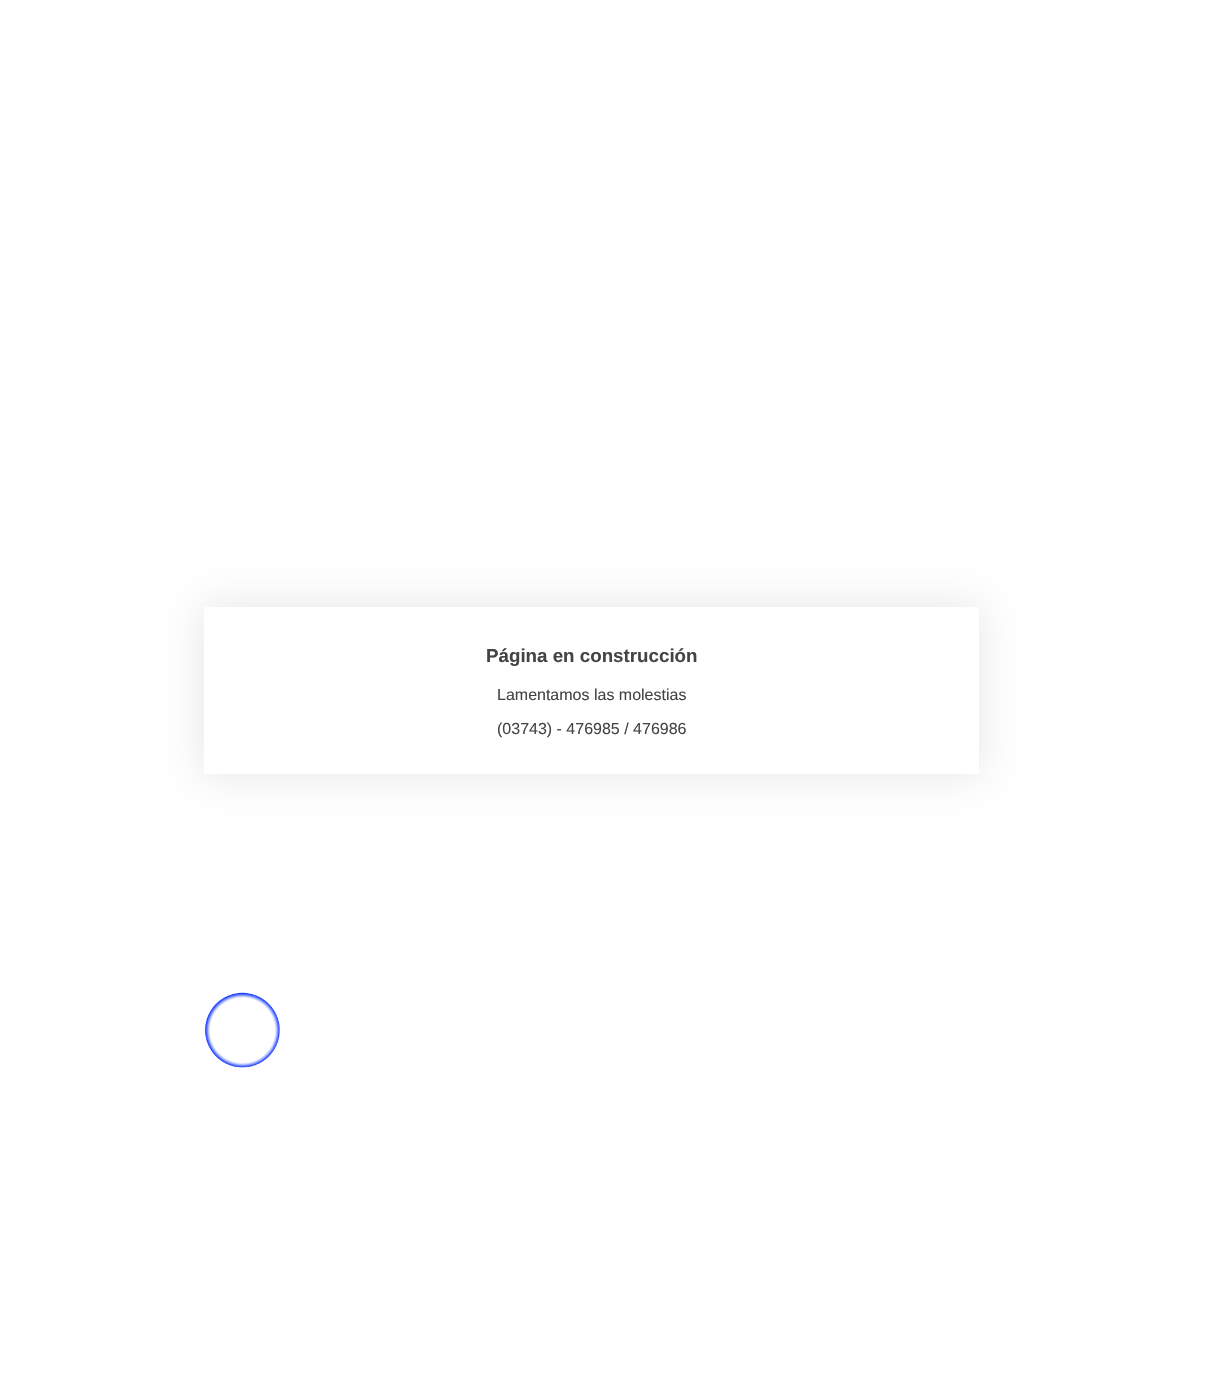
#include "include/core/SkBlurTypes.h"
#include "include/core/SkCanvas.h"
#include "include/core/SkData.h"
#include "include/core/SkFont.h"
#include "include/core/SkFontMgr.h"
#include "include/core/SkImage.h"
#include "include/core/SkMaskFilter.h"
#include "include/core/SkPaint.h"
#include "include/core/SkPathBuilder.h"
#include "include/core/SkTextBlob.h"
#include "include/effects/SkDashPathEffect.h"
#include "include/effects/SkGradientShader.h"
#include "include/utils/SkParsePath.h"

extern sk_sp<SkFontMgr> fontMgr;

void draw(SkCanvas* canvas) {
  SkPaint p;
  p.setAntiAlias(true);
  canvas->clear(SK_ColorWHITE);
  canvas->save();
  canvas->clipPath(SkPathBuilder(SkPathFillType::kEvenOdd).moveTo(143, 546).lineTo(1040, 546).lineTo(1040, 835).lineTo(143, 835).close().moveTo(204, 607).lineTo(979, 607).lineTo(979, 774).lineTo(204, 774).close().detach(), true);
  p.setColor(SkColorSetARGB(26, 0, 0, 0));
  p.setMaskFilter(SkMaskFilter::MakeBlur(kNormal_SkBlurStyle, 20));
  canvas->drawRect(SkRect::MakeLTRB(204, 607, 979, 774), p);
  p.setMaskFilter(nullptr);
  canvas->restore();
  canvas->drawImageRect(SkImages::DeferredFromEncodedData(SkData::MakeFromFileName("images/1.png")), SkRect::MakeLTRB(205, 992, 280, 1068), SkSamplingOptions());
  SkFont font1(fontMgr->matchFamilyStyle("Liberation Sans", SkFontStyle::Bold()), 18.75f);
  font1.setSubpixel(true);
  p.setColor(SkColorSetRGB(68, 68, 68));
  canvas->drawString("Página en construcción", 486, 662, font1, p);
  SkFont font2(fontMgr->matchFamilyStyle("Liberation Sans", SkFontStyle::Normal()), 16);
  font2.setSubpixel(true);
  canvas->drawString("Lamentamos las molestias", 497, 700, font2, p);
  canvas->drawString("(03743) - 476985 / 476986", 497, 734, font2, p);
}
